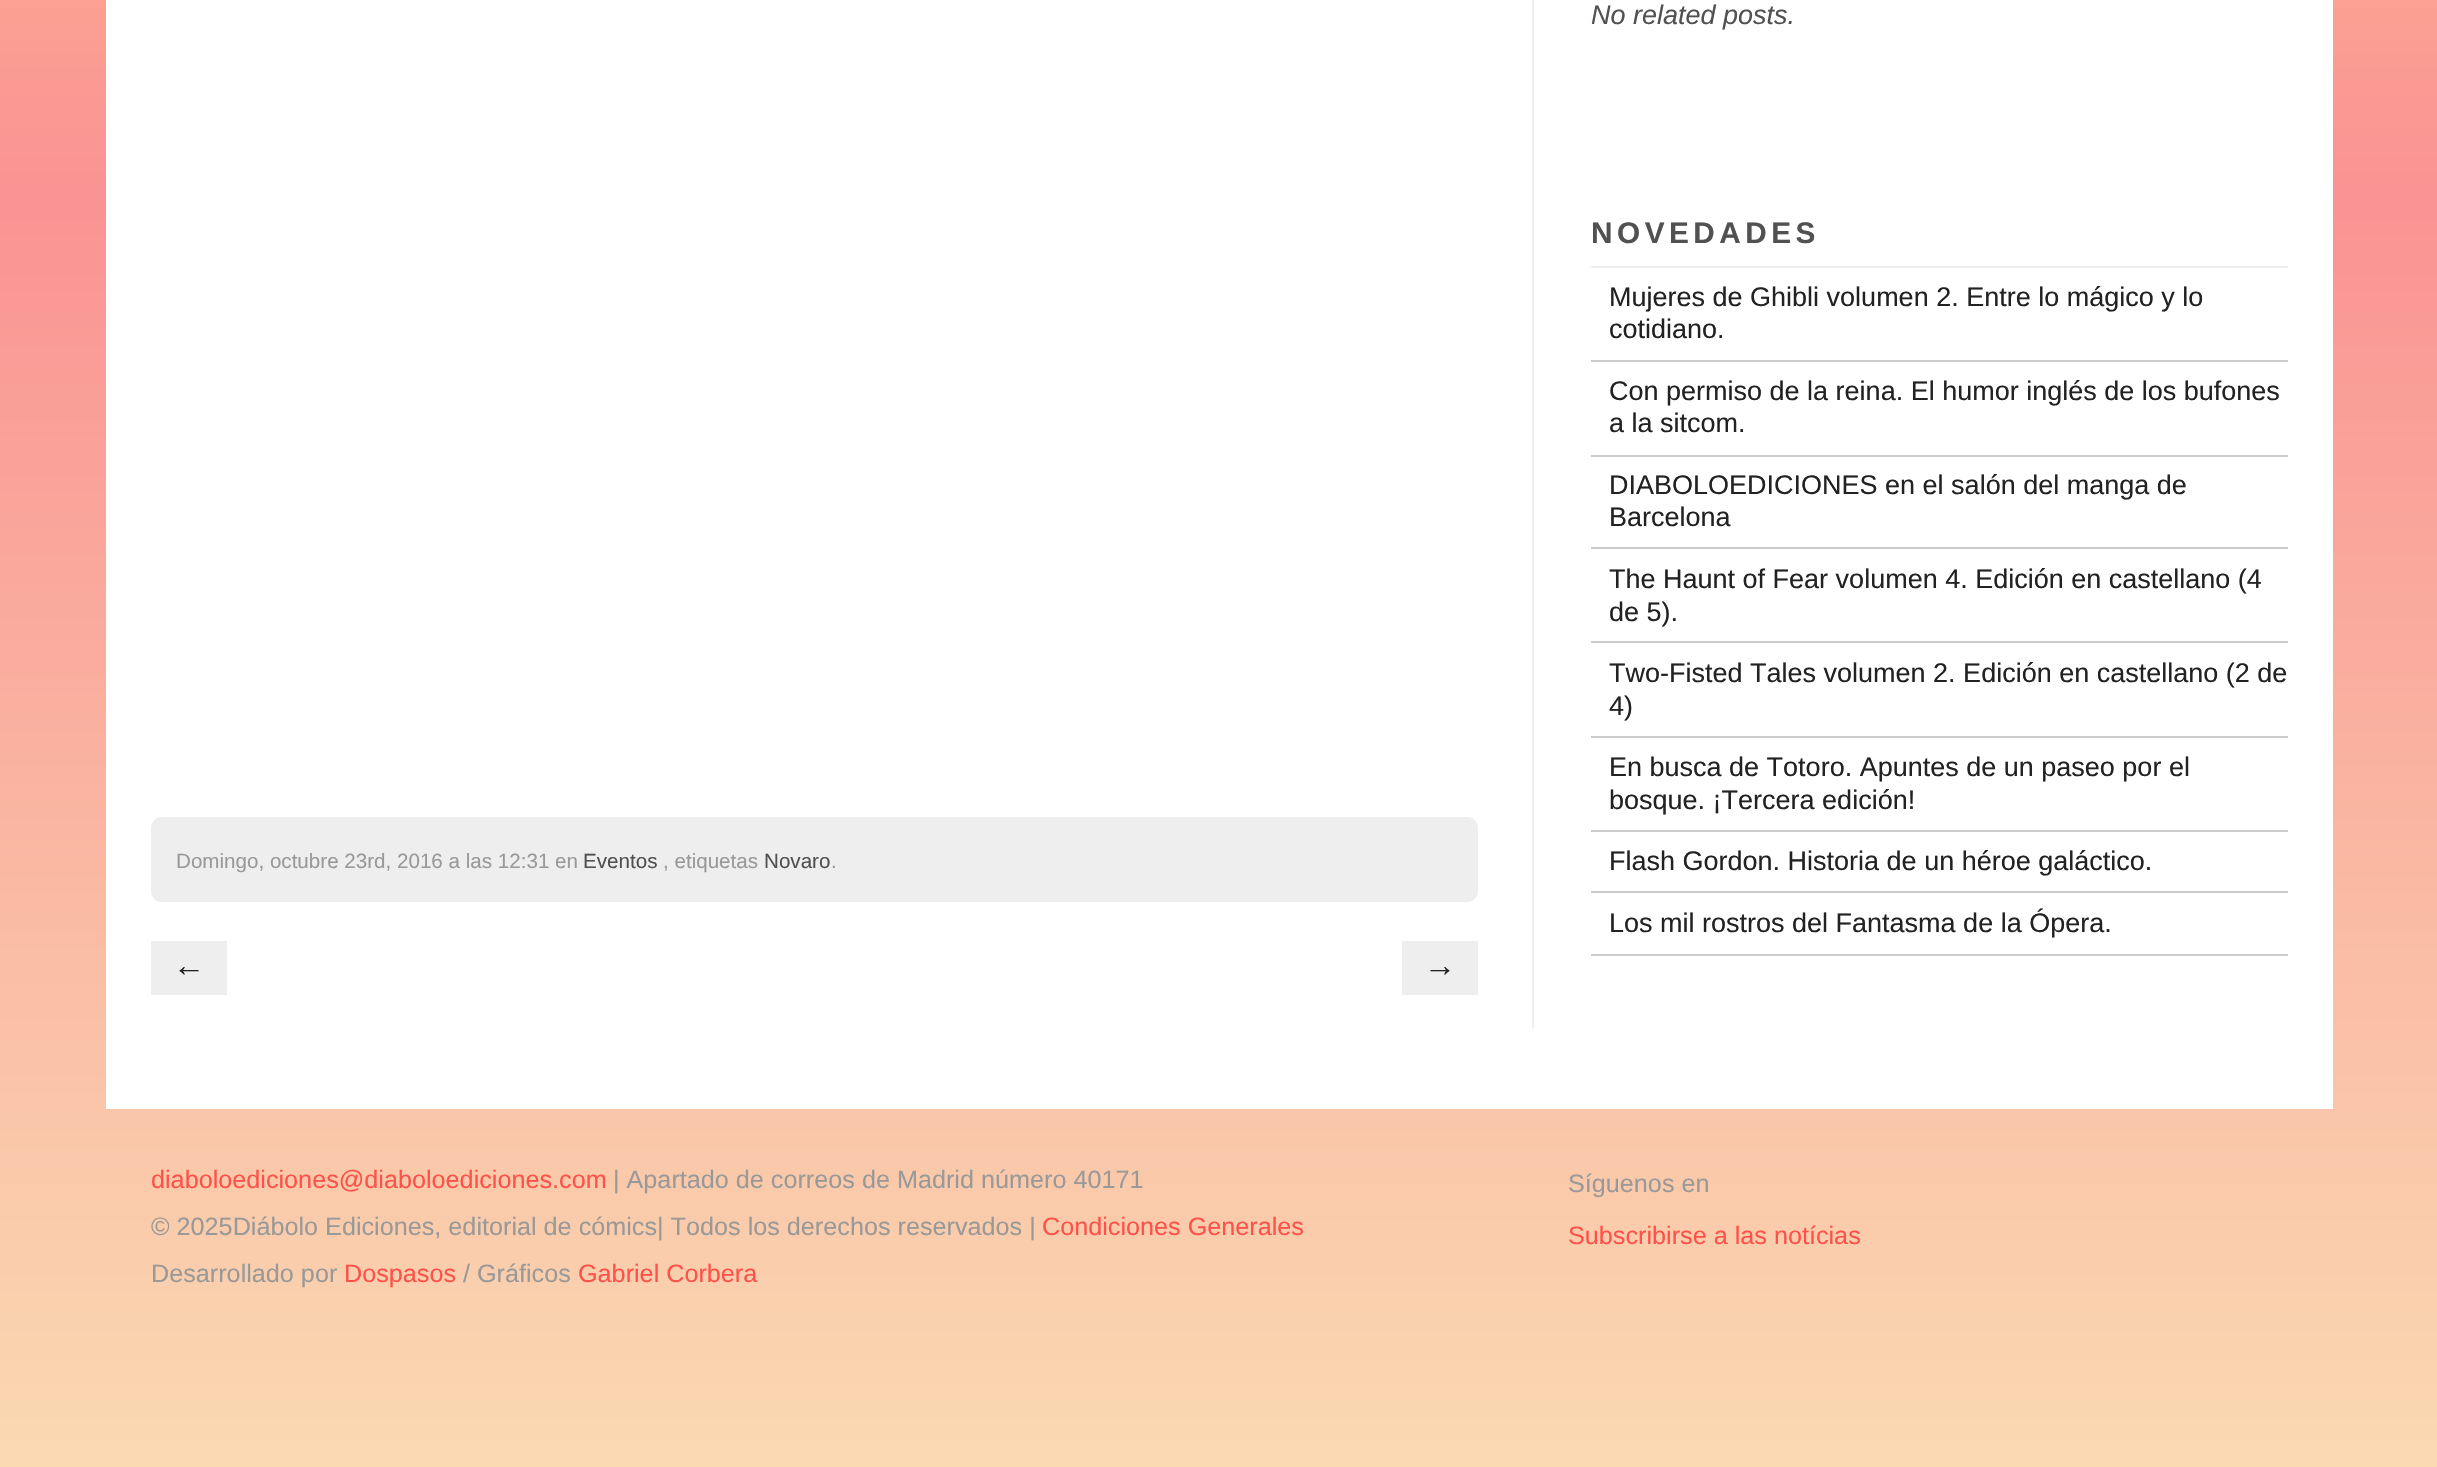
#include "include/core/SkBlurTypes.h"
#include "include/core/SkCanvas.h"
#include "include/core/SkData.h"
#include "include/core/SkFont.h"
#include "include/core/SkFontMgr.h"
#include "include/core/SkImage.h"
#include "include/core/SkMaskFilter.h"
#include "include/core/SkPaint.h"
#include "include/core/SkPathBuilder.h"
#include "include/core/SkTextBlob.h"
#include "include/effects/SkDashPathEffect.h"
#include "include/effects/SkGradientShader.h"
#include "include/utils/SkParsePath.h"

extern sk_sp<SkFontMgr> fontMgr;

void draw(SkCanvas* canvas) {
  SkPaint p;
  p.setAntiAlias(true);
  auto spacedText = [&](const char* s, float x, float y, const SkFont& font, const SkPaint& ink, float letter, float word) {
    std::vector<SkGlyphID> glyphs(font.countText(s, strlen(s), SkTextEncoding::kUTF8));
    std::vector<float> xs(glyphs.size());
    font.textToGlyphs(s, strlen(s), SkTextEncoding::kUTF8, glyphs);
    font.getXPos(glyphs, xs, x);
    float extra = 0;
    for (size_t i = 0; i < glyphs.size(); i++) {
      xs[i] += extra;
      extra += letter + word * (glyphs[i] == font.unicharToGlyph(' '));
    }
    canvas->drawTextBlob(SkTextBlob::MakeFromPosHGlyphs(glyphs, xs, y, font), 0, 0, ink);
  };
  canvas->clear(SK_ColorWHITE);
  {
    const SkColor colors[] = {SkColorSetRGB(255, 234, 150), SkColorSetRGB(250, 147, 147), SkColorSetRGB(250, 217, 177)};
    const float stops[] = {0, 0.5f, 1};
    const SkPoint ends[] = {{0, -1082}, {0, 1467}};
    p.setShader(SkGradientShader::MakeLinear(ends, colors, stops, 3, SkTileMode::kClamp));
    p.setAlpha(255);
  }
  canvas->drawRect(SkRect::MakeLTRB(0, 0, 2437, 1467), p);
  p.setShader(nullptr);
  p.setColor(SK_ColorWHITE);
  canvas->drawRect(SkRect::MakeLTRB(106, 0, 2333, 1109), p);
  p.setColor(SkColorSetRGB(238, 238, 238));
  canvas->drawRect(SkRect::MakeLTRB(1532, 0, 1534, 1028), p);
  canvas->drawRoundRect(SkRect::MakeLTRB(151, 817, 1478, 902), 11, 11, p);
  canvas->drawRect(SkRect::MakeLTRB(151, 941, 227, 995), p);
  canvas->drawRect(SkRect::MakeLTRB(1402, 941, 1478, 995), p);
  canvas->drawRect(SkRect::MakeLTRB(1591, 266, 2288, 268), p);
  p.setColor(SkColorSetRGB(204, 204, 204));
  canvas->drawRect(SkRect::MakeLTRB(1591, 360, 2288, 362), p);
  canvas->drawRect(SkRect::MakeLTRB(1591, 455, 2288, 457), p);
  canvas->drawRect(SkRect::MakeLTRB(1591, 547, 2288, 549), p);
  canvas->drawRect(SkRect::MakeLTRB(1591, 641, 2288, 643), p);
  canvas->drawRect(SkRect::MakeLTRB(1591, 736, 2288, 738), p);
  canvas->drawRect(SkRect::MakeLTRB(1591, 830, 2288, 832), p);
  canvas->drawRect(SkRect::MakeLTRB(1591, 891, 2288, 893), p);
  canvas->drawRect(SkRect::MakeLTRB(1591, 954, 2288, 956), p);
  SkFont font1(fontMgr->matchFamilyStyle("Liberation Sans", SkFontStyle::Normal()), 20.6f);
  font1.setSubpixel(true);
  p.setColor(SkColorSetRGB(153, 153, 153));
  canvas->drawString("Domingo, octubre 23rd, 2016 a las 12:31", 176, 868, font1, p);
  canvas->drawString("en", 555, 868, font1, p);
  p.setColor(SkColorSetRGB(81, 81, 81));
  canvas->drawString("Eventos", 583, 868, font1, p);
  p.setColor(SkColorSetRGB(153, 153, 153));
  canvas->drawString(", etiquetas", 663, 868, font1, p);
  p.setColor(SkColorSetRGB(81, 81, 81));
  canvas->drawString("Novaro", 764, 868, font1, p);
  p.setColor(SkColorSetRGB(153, 153, 153));
  canvas->drawString(".", 831, 868, font1, p);
  SkFont font2(fontMgr->matchFamilyStyle("Liberation Sans", SkFontStyle::Bold()), 32);
  font2.setSubpixel(true);
  p.setColor(SkColorSetRGB(34, 34, 34));
  canvas->drawString("←", 173, 976, font2, p);
  canvas->drawString("→", 1424, 976, font2, p);
  SkFont font3(fontMgr->matchFamilyStyle("Liberation Sans", SkFontStyle::Italic()), 27);
  font3.setSubpixel(true);
  p.setColor(SkColorSetRGB(81, 81, 81));
  canvas->drawString("No related posts.", 1591, 24, font3, p);
  SkFont font4(fontMgr->matchFamilyStyle("Liberation Sans", SkFontStyle::Bold()), 29.75f);
  font4.setSubpixel(true);
  spacedText("NOVEDADES", 1591, 243, font4, p, 4.5f, 0);
  SkFont font5(fontMgr->matchFamilyStyle("Liberation Sans", SkFontStyle::Normal()), 27);
  font5.setSubpixel(true);
  p.setColor(SkColorSetRGB(34, 34, 34));
  canvas->drawString("Mujeres de Ghibli volumen 2. Entre lo mágico y lo", 1609, 306, font5, p);
  canvas->drawString("cotidiano.", 1609, 338, font5, p);
  canvas->drawString("Con permiso de la reina. El humor inglés de los bufones", 1609, 400, font5, p);
  canvas->drawString("a la sitcom.", 1609, 432, font5, p);
  canvas->drawString("DIABOLOEDICIONES en el salón del manga de", 1609, 494, font5, p);
  canvas->drawString("Barcelona", 1609, 526, font5, p);
  canvas->drawString("The Haunt of Fear volumen 4. Edición en castellano (4", 1609, 588, font5, p);
  canvas->drawString("de 5).", 1609, 621, font5, p);
  canvas->drawString("Two-Fisted Tales volumen 2. Edición en castellano (2 de", 1609, 682, font5, p);
  canvas->drawString("4)", 1609, 715, font5, p);
  canvas->drawString("En busca de Totoro. Apuntes de un paseo por el", 1609, 776, font5, p);
  canvas->drawString("bosque. ¡Tercera edición!", 1609, 809, font5, p);
  canvas->drawString("Flash Gordon. Historia de un héroe galáctico.", 1609, 870, font5, p);
  canvas->drawString("Los mil rostros del Fantasma de la Ópera.", 1609, 932, font5, p);
  SkFont font6(fontMgr->matchFamilyStyle("Liberation Sans", SkFontStyle::Normal()), 25.2f);
  font6.setSubpixel(true);
  p.setColor(SkColorSetRGB(255, 81, 73));
  canvas->drawString("diaboloediciones@diaboloediciones.com", 151, 1188, font6, p);
  p.setColor(SkColorSetRGB(153, 153, 153));
  canvas->drawString("| Apartado de correos de Madrid número 40171", 613, 1188, font6, p);
  canvas->drawString("© 2025Diábolo Ediciones, editorial de cómics| Todos los derechos reservados |", 151, 1235, font6, p);
  p.setColor(SkColorSetRGB(255, 81, 73));
  canvas->drawString("Condiciones Generales", 1042, 1235, font6, p);
  p.setColor(SkColorSetRGB(153, 153, 153));
  canvas->drawString("Desarrollado por", 151, 1282, font6, p);
  p.setColor(SkColorSetRGB(255, 81, 73));
  canvas->drawString("Dospasos", 344, 1282, font6, p);
  p.setColor(SkColorSetRGB(153, 153, 153));
  canvas->drawString("/ Gráficos", 463, 1282, font6, p);
  p.setColor(SkColorSetRGB(255, 81, 73));
  canvas->drawString("Gabriel Corbera", 578, 1282, font6, p);
  p.setColor(SkColorSetRGB(153, 153, 153));
  canvas->drawString("Síguenos en", 1568, 1192, font6, p);
  p.setColor(SkColorSetRGB(255, 81, 73));
  canvas->drawString("Subscribirse a las notícias", 1568, 1244, font6, p);
}
